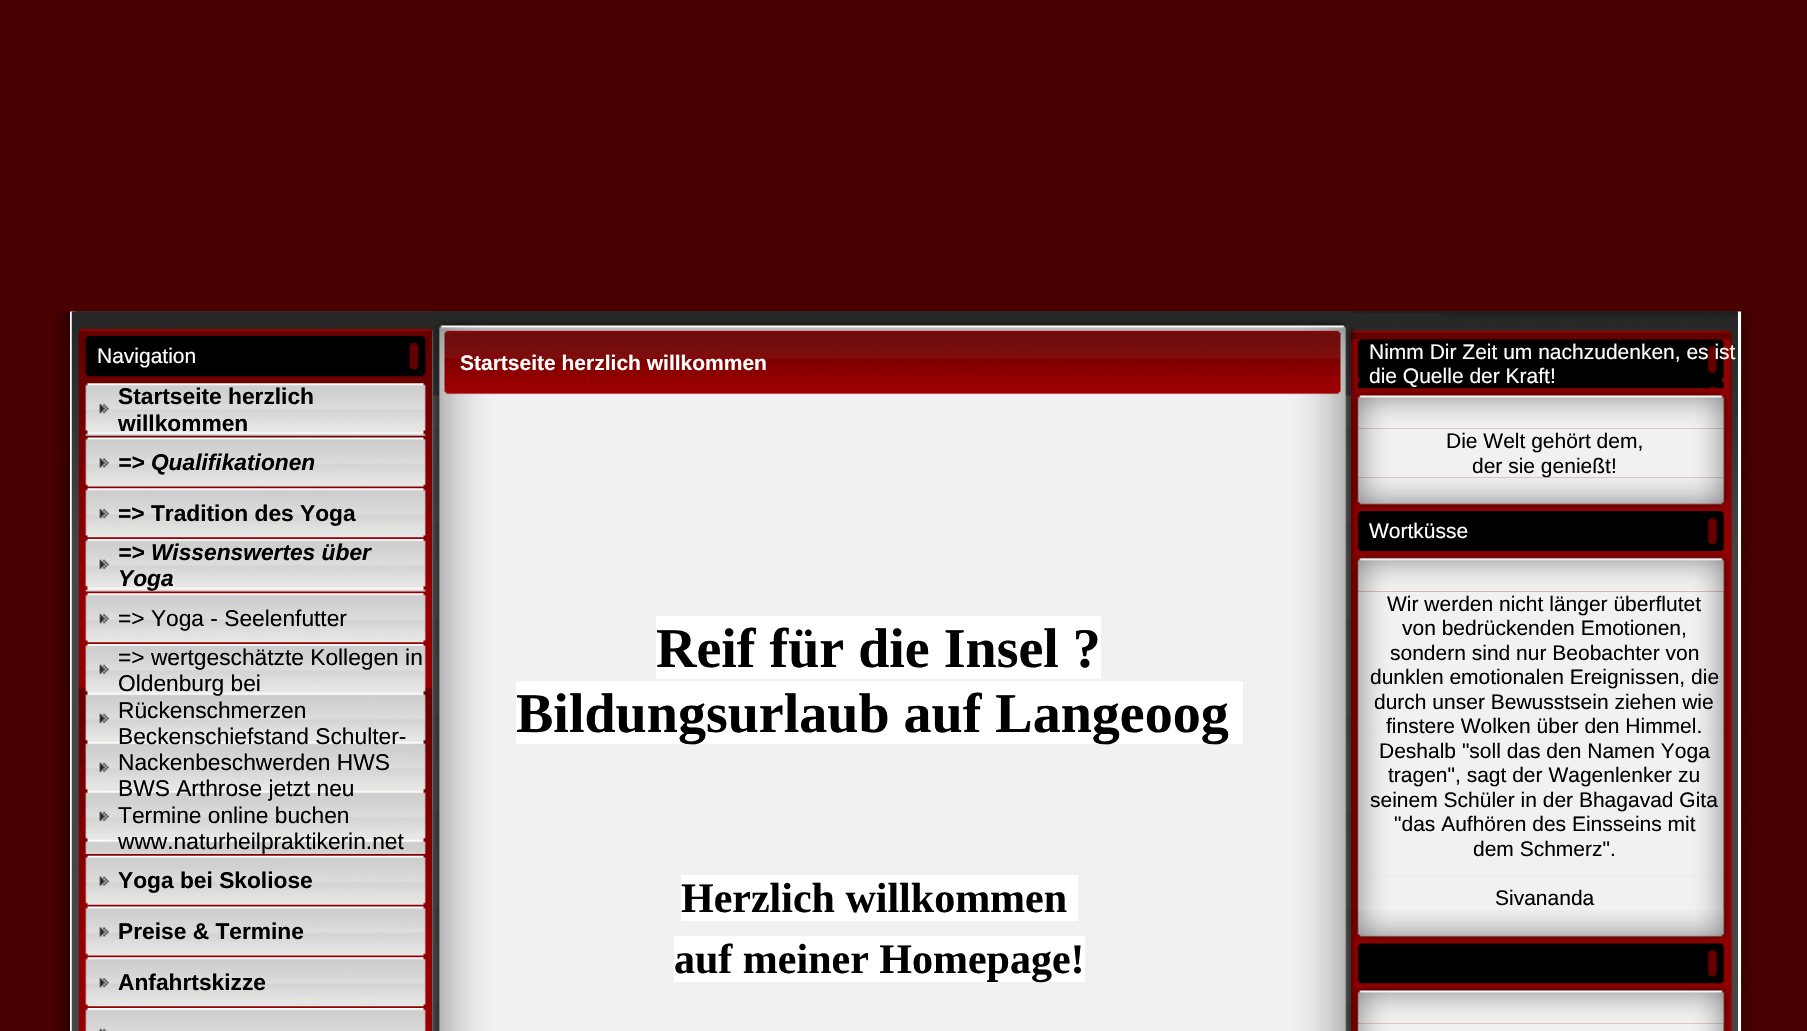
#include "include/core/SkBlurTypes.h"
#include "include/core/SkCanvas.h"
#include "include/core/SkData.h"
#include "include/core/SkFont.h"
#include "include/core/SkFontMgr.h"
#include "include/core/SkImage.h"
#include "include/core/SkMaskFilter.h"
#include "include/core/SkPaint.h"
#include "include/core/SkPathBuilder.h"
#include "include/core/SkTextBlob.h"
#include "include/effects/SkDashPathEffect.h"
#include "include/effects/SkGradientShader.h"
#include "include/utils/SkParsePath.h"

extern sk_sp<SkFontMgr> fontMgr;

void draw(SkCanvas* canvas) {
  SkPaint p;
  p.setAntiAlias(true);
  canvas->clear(SkColorSetRGB(74, 0, 1));
  canvas->drawImageRect(SkImages::DeferredFromEncodedData(SkData::MakeFromFileName("images/1.png")), SkRect::MakeLTRB(52, 311, 70, 1031), SkSamplingOptions());
  canvas->drawImageRect(SkImages::DeferredFromEncodedData(SkData::MakeFromFileName("images/2.png")), SkRect::MakeLTRB(70, 311, 1742, 1031), SkSamplingOptions());
  canvas->drawImageRect(SkImages::DeferredFromEncodedData(SkData::MakeFromFileName("images/3.png")), SkRect::MakeLTRB(71, 311, 433, 1031), SkSamplingOptions());
  canvas->drawImageRect(SkImages::DeferredFromEncodedData(SkData::MakeFromFileName("images/5.png")), SkRect::MakeLTRB(78, 336, 433, 1031), SkSamplingOptions());
  canvas->drawImageRect(SkImages::DeferredFromEncodedData(SkData::MakeFromFileName("images/6.png")), SkRect::MakeLTRB(78, 336, 433, 377), SkSamplingOptions());
  canvas->drawImageRect(SkImages::DeferredFromEncodedData(SkData::MakeFromFileName("images/17.png")), SkRect::MakeLTRB(432, 311, 1351, 1031), SkSamplingOptions());
  canvas->drawImageRect(SkImages::DeferredFromEncodedData(SkData::MakeFromFileName("images/19.png")), SkRect::MakeLTRB(432, 330, 1351, 1031), SkSamplingOptions());
  canvas->drawImageRect(SkImages::DeferredFromEncodedData(SkData::MakeFromFileName("images/20.png")), SkRect::MakeLTRB(432, 330, 1351, 396), SkSamplingOptions());
  canvas->drawImageRect(SkImages::DeferredFromEncodedData(SkData::MakeFromFileName("images/4.png")), SkRect::MakeLTRB(78, 329, 433, 336), SkSamplingOptions());
  canvas->drawImageRect(SkImages::DeferredFromEncodedData(SkData::MakeFromFileName("images/7.png")), SkRect::MakeLTRB(85, 383, 426, 436), SkSamplingOptions());
  canvas->drawImageRect(SkImages::DeferredFromEncodedData(SkData::MakeFromFileName("images/8.png")), SkRect::MakeLTRB(85, 437, 426, 487), SkSamplingOptions());
  canvas->drawImageRect(SkImages::DeferredFromEncodedData(SkData::MakeFromFileName("images/9.png")), SkRect::MakeLTRB(85, 488, 426, 538), SkSamplingOptions());
  canvas->drawImageRect(SkImages::DeferredFromEncodedData(SkData::MakeFromFileName("images/10.png")), SkRect::MakeLTRB(85, 539, 426, 592), SkSamplingOptions());
  canvas->drawImageRect(SkImages::DeferredFromEncodedData(SkData::MakeFromFileName("images/11.png")), SkRect::MakeLTRB(85, 593, 426, 643), SkSamplingOptions());
  canvas->drawImageRect(SkImages::DeferredFromEncodedData(SkData::MakeFromFileName("images/12.png")), SkRect::MakeLTRB(85, 644, 426, 854), SkSamplingOptions());
  canvas->drawImageRect(SkImages::DeferredFromEncodedData(SkData::MakeFromFileName("images/13.png")), SkRect::MakeLTRB(85, 855, 426, 905), SkSamplingOptions());
  canvas->drawImageRect(SkImages::DeferredFromEncodedData(SkData::MakeFromFileName("images/14.png")), SkRect::MakeLTRB(85, 906, 426, 956), SkSamplingOptions());
  canvas->drawImageRect(SkImages::DeferredFromEncodedData(SkData::MakeFromFileName("images/15.png")), SkRect::MakeLTRB(85, 957, 426, 1007), SkSamplingOptions());
  canvas->drawImageRect(SkImages::DeferredFromEncodedData(SkData::MakeFromFileName("images/16.png")), SkRect::MakeLTRB(85, 1008, 426, 1031), SkSamplingOptions());
  canvas->drawImageRect(SkImages::DeferredFromEncodedData(SkData::MakeFromFileName("images/18.png")), SkRect::MakeLTRB(432, 311, 1346, 331), SkSamplingOptions());
  p.setColor(SK_ColorWHITE);
  canvas->drawRect(SkRect::MakeLTRB(656, 616, 1101, 679), p);
  canvas->drawRect(SkRect::MakeLTRB(516, 681, 1243, 744), p);
  canvas->drawRect(SkRect::MakeLTRB(681, 875, 1078, 921), p);
  canvas->drawRect(SkRect::MakeLTRB(674, 936, 1085, 982), p);
  canvas->drawImageRect(SkImages::DeferredFromEncodedData(SkData::MakeFromFileName("images/21.png")), SkRect::MakeLTRB(1351, 311, 1738, 1031), SkSamplingOptions());
  canvas->drawImageRect(SkImages::DeferredFromEncodedData(SkData::MakeFromFileName("images/22.png")), SkRect::MakeLTRB(1351, 311, 1738, 1031), SkSamplingOptions());
  canvas->drawImageRect(SkImages::DeferredFromEncodedData(SkData::MakeFromFileName("images/23.png")), SkRect::MakeLTRB(1351, 311, 1738, 1031), SkSamplingOptions());
  canvas->drawImageRect(SkImages::DeferredFromEncodedData(SkData::MakeFromFileName("images/24.png")), SkRect::MakeLTRB(1351, 339, 1731, 389), SkSamplingOptions());
  canvas->drawImageRect(SkImages::DeferredFromEncodedData(SkData::MakeFromFileName("images/25.png")), SkRect::MakeLTRB(1351, 388, 1731, 429), SkSamplingOptions());
  canvas->drawImageRect(SkImages::DeferredFromEncodedData(SkData::MakeFromFileName("images/26.png")), SkRect::MakeLTRB(1351, 428, 1731, 478), SkSamplingOptions());
  canvas->drawImageRect(SkImages::DeferredFromEncodedData(SkData::MakeFromFileName("images/28.png")), SkRect::MakeLTRB(1351, 511, 1731, 552), SkSamplingOptions());
  canvas->drawImageRect(SkImages::DeferredFromEncodedData(SkData::MakeFromFileName("images/29.png")), SkRect::MakeLTRB(1351, 551, 1731, 592), SkSamplingOptions());
  canvas->drawImageRect(SkImages::DeferredFromEncodedData(SkData::MakeFromFileName("images/30.png")), SkRect::MakeLTRB(1352, 591, 1730, 910), SkSamplingOptions());
  canvas->drawImageRect(SkImages::DeferredFromEncodedData(SkData::MakeFromFileName("images/32.png")), SkRect::MakeLTRB(1357, 943, 1725, 984), SkSamplingOptions());
  canvas->drawImageRect(SkImages::DeferredFromEncodedData(SkData::MakeFromFileName("images/31.png")), SkRect::MakeLTRB(1352, 910, 1730, 944), SkSamplingOptions());
  canvas->drawImageRect(SkImages::DeferredFromEncodedData(SkData::MakeFromFileName("images/33.png")), SkRect::MakeLTRB(1352, 983, 1730, 1024), SkSamplingOptions());
  canvas->drawImageRect(SkImages::DeferredFromEncodedData(SkData::MakeFromFileName("images/34.png")), SkRect::MakeLTRB(1352, 1023, 1730, 1031), SkSamplingOptions());
  canvas->drawImageRect(SkImages::DeferredFromEncodedData(SkData::MakeFromFileName("images/35.png")), SkRect::MakeLTRB(1741, 311, 1754, 1031), SkSamplingOptions());
  SkFont font1(fontMgr->matchFamilyStyle("Liberation Sans", SkFontStyle::Normal()), 21);
  font1.setSubpixel(true);
  canvas->drawString("Navigation", 97, 363, font1, p);
  SkFont font2(fontMgr->matchFamilyStyle("Liberation Sans", SkFontStyle::Bold()), 22.75f);
  font2.setSubpixel(true);
  p.setColor(SK_ColorBLACK);
  canvas->drawString("Startseite herzlich", 118, 404, font2, p);
  canvas->drawString("willkommen", 118, 431, font2, p);
  SkFont font3(fontMgr->matchFamilyStyle("Liberation Sans", SkFontStyle::BoldItalic()), 22.75f);
  font3.setSubpixel(true);
  canvas->drawString("=> Qualifikationen", 118, 470, font3, p);
  canvas->drawString("=> Tradition des Yoga", 118, 521, font2, p);
  canvas->drawString("=> Wissenswertes über", 118, 560, font3, p);
  canvas->drawString("Yoga", 118, 586, font3, p);
  SkFont font4(fontMgr->matchFamilyStyle("Liberation Sans", SkFontStyle::Normal()), 22.75f);
  font4.setSubpixel(true);
  canvas->drawString("=> Yoga - Seelenfutter", 118, 626, font4, p);
  canvas->drawString("=> wertgeschätzte Kollegen in", 118, 665, font4, p);
  canvas->drawString("Oldenburg bei", 118, 691, font4, p);
  canvas->drawString("Rückenschmerzen", 118, 718, font4, p);
  canvas->drawString("Beckenschiefstand Schulter-", 118, 744, font4, p);
  canvas->drawString("Nackenbeschwerden HWS", 118, 770, font4, p);
  canvas->drawString("BWS Arthrose jetzt neu", 118, 796, font4, p);
  canvas->drawString("Termine online buchen", 118, 823, font4, p);
  canvas->drawString("www.naturheilpraktikerin.net", 118, 849, font4, p);
  canvas->drawString("Yoga bei Skoliose", 118, 888, font2, p);
  canvas->drawString("Preise & Termine", 118, 939, font2, p);
  canvas->drawString("Anfahrtskizze", 118, 990, font2, p);
  SkFont font5(fontMgr->matchFamilyStyle("Liberation Sans", SkFontStyle::Bold()), 21);
  font5.setSubpixel(true);
  p.setColor(SK_ColorWHITE);
  canvas->drawString("Startseite herzlich willkommen", 460, 370, font5, p);
  SkFont font6(fontMgr->matchFamilyStyle("Liberation Serif", SkFontStyle::Bold()), 56);
  font6.setSubpixel(true);
  p.setColor(SK_ColorBLACK);
  canvas->drawString("Reif für die Insel ?", 656, 667, font6, p);
  canvas->drawString("Bildungsurlaub auf Langeoog", 516, 732, font6, p);
  SkFont font7(fontMgr->matchFamilyStyle("Liberation Serif", SkFontStyle::Bold()), 42);
  font7.setSubpixel(true);
  canvas->drawString("Herzlich willkommen", 681, 912, font7, p);
  canvas->drawString("auf meiner Homepage!", 674, 973, font7, p);
  p.setColor(SK_ColorWHITE);
  canvas->drawString("Nimm Dir Zeit um nachzudenken, es ist", 1369, 359, font1, p);
  canvas->drawString("die Quelle der Kraft!", 1369, 383, font1, p);
  p.setColor(SK_ColorBLACK);
  canvas->drawString("Die Welt gehört dem,", 1446, 448, font1, p);
  canvas->drawString("der sie genießt!", 1472, 473, font1, p);
  canvas->drawImageRect(SkImages::DeferredFromEncodedData(SkData::MakeFromFileName("images/27.png")), SkRect::MakeLTRB(1351, 477, 1731, 511), SkSamplingOptions());
  p.setColor(SK_ColorWHITE);
  canvas->drawString("Wortküsse", 1369, 538, font1, p);
  p.setColor(SK_ColorBLACK);
  canvas->drawString("Wir werden nicht länger überflutet", 1387, 611, font1, p);
  canvas->drawString("von bedrückenden Emotionen,", 1402, 635, font1, p);
  canvas->drawString("sondern sind nur Beobachter von", 1390, 660, font1, p);
  canvas->drawString("dunklen emotionalen Ereignissen, die", 1370, 684, font1, p);
  canvas->drawString("durch unser Bewusstsein ziehen wie", 1374, 709, font1, p);
  canvas->drawString("finstere Wolken über den Himmel.", 1386, 733, font1, p);
  canvas->drawString("Deshalb \"soll das den Namen Yoga", 1379, 758, font1, p);
  canvas->drawString("tragen\", sagt der Wagenlenker zu", 1388, 782, font1, p);
  canvas->drawString("seinem Schüler in der Bhagavad Gita", 1370, 807, font1, p);
  canvas->drawString("\"das Aufhören des Einsseins mit", 1394, 831, font1, p);
  canvas->drawString("dem Schmerz\".", 1473, 856, font1, p);
  canvas->drawString("Sivananda", 1495, 905, font1, p);
}
